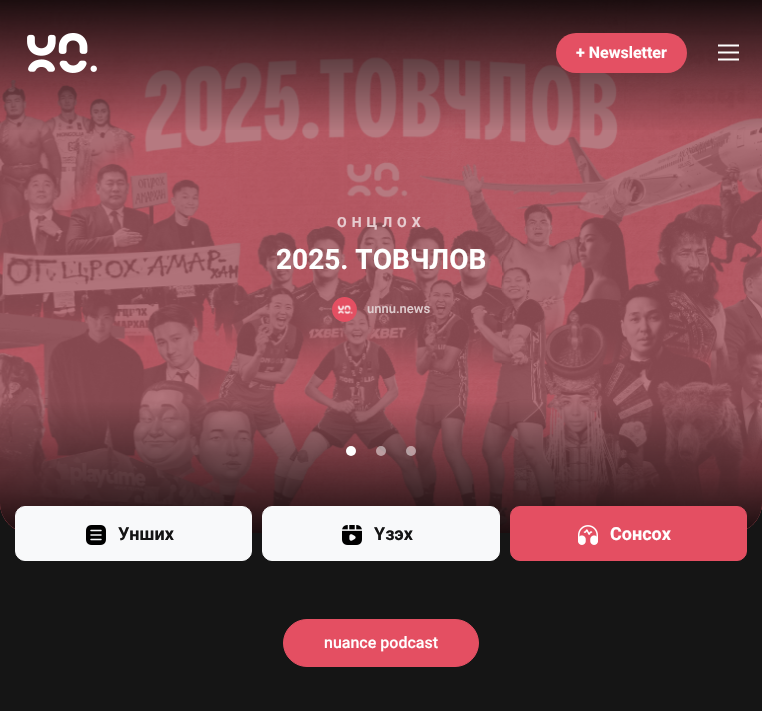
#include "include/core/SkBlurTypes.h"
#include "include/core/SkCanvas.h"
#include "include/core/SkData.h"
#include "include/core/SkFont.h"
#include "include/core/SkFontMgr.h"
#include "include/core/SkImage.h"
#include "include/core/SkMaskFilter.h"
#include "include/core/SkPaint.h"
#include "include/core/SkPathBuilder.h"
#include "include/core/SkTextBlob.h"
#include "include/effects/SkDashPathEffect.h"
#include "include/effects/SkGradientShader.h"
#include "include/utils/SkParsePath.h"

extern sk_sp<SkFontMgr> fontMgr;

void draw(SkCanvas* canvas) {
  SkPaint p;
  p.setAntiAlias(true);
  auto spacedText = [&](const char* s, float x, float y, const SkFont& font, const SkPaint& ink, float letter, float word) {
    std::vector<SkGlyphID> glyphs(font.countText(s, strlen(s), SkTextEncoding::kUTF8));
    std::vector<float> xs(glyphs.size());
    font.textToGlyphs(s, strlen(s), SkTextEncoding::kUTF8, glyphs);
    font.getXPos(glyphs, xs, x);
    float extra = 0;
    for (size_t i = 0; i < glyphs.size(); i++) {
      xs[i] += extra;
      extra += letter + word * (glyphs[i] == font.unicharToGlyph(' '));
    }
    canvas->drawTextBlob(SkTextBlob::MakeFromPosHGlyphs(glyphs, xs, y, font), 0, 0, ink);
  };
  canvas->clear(SkColorSetRGB(21, 21, 21));
  canvas->drawImageRect(SkImages::DeferredFromEncodedData(SkData::MakeFromFileName("images/2.png")), SkRect::MakeLTRB(0, 0, 762, 533), SkSamplingOptions());
  p.setColor(SkColorSetARGB(204, 164, 87, 96));
  canvas->drawPath(SkPathBuilder().moveTo(0, 0).lineTo(762, 0).lineTo(762, 503).cubicTo(762, 519.5f, 748.5f, 533, 732, 533).lineTo(30, 533).cubicTo(13.5f, 533, 0, 519.5f, 0, 503).close().detach(), p);
  {
    const SkColor colors[] = {SkColorSetARGB(217, 0, 0, 0), SkColorSetARGB(0, 0, 0, 0)};
    const float stops[] = {0, 1};
    const SkPoint ends[] = {{381, 0}, {381, 133}};
    p.setShader(SkGradientShader::MakeLinear(ends, colors, stops, 2, SkTileMode::kClamp));
    p.setAlpha(255);
  }
  canvas->drawRect(SkRect::MakeLTRB(0, 0, 762, 130), p);
  canvas->drawImageRect(SkImages::DeferredFromEncodedData(SkData::MakeFromFileName("images/1.png")), SkRect::MakeLTRB(27, 33, 97, 73), SkSamplingOptions());
  p.setShader(nullptr);
  p.setColor(SkColorSetRGB(228, 80, 99));
  canvas->drawRoundRect(SkRect::MakeLTRB(556, 33, 687, 73), 20, 20, p);
  p.setStyle(SkPaint::kStroke_Style);
  p.setStrokeWidth(2);
  p.setColor(SK_ColorWHITE);
  canvas->drawPath(SkPathBuilder().moveTo(718, 45.5f).lineTo(739, 45.5f).moveTo(718, 52.5f).lineTo(739, 52.5f).moveTo(718, 59.5f).lineTo(739, 59.5f).detach(), p);
  canvas->drawImageRect(SkImages::DeferredFromEncodedData(SkData::MakeFromFileName("images/3.png")), SkRect::MakeLTRB(332, 297, 357, 322), SkSamplingOptions());
  p.setStyle(SkPaint::kFill_Style);
  {
    const SkColor colors[] = {SkColorSetARGB(217, 0, 0, 0), SkColorSetARGB(0, 0, 0, 0)};
    const float stops[] = {0, 1};
    const SkPoint ends[] = {{381, 533}, {381, 400}};
    p.setShader(SkGradientShader::MakeLinear(ends, colors, stops, 2, SkTileMode::kClamp));
    p.setAlpha(255);
  }
  canvas->drawPath(SkPathBuilder().moveTo(0, 400).lineTo(762, 400).lineTo(762, 503).cubicTo(762, 519.5f, 748.5f, 533, 732, 533).lineTo(30, 533).cubicTo(13.5f, 533, 0, 519.5f, 0, 503).close().detach(), p);
  p.setShader(nullptr);
  p.setColor(SK_ColorWHITE);
  canvas->drawCircle(351, 451, 5, p);
  p.setColor(SkColorSetARGB(128, 255, 255, 255));
  canvas->drawCircle(381, 451, 5, p);
  canvas->drawCircle(411, 451, 5, p);
  p.setColor(SkColorSetRGB(248, 249, 250));
  canvas->drawRoundRect(SkRect::MakeLTRB(15.5f, 506.5f, 251.5f, 560.5f), 9.5f, 9.5f, p);
  p.setStyle(SkPaint::kStroke_Style);
  p.setStrokeWidth(1);
  canvas->drawRoundRect(SkRect::MakeLTRB(15.5f, 506.5f, 251.5f, 560.5f), 9.5f, 9.5f, p);
  canvas->drawImageRect(SkImages::DeferredFromEncodedData(SkData::MakeFromFileName("images/4.png")), SkRect::MakeLTRB(86, 525, 106, 545), SkSamplingOptions());
  p.setStyle(SkPaint::kFill_Style);
  canvas->drawRoundRect(SkRect::MakeLTRB(262.5f, 506.5f, 499.5f, 560.5f), 9.5f, 9.5f, p);
  p.setStyle(SkPaint::kStroke_Style);
  canvas->drawRoundRect(SkRect::MakeLTRB(262.5f, 506.5f, 499.5f, 560.5f), 9.5f, 9.5f, p);
  canvas->drawImageRect(SkImages::DeferredFromEncodedData(SkData::MakeFromFileName("images/5.png")), SkRect::MakeLTRB(342, 525, 362, 545), SkSamplingOptions());
  p.setStyle(SkPaint::kFill_Style);
  p.setColor(SkColorSetRGB(228, 79, 98));
  canvas->drawRoundRect(SkRect::MakeLTRB(510.5f, 506.5f, 746.5f, 560.5f), 9.5f, 9.5f, p);
  p.setStyle(SkPaint::kStroke_Style);
  canvas->drawRoundRect(SkRect::MakeLTRB(510.5f, 506.5f, 746.5f, 560.5f), 9.5f, 9.5f, p);
  canvas->drawImageRect(SkImages::DeferredFromEncodedData(SkData::MakeFromFileName("images/6.png")), SkRect::MakeLTRB(578, 525, 598, 545), SkSamplingOptions());
  p.setStyle(SkPaint::kFill_Style);
  canvas->drawRoundRect(SkRect::MakeLTRB(283.5f, 619.5f, 478.5f, 666.5f), 23.5f, 23.5f, p);
  p.setStyle(SkPaint::kStroke_Style);
  canvas->drawRoundRect(SkRect::MakeLTRB(283.5f, 619.5f, 478.5f, 666.5f), 23.5f, 23.5f, p);
  SkFont font1(fontMgr->matchFamilyStyle("Roboto", SkFontStyle::Bold()), 16);
  font1.setSubpixel(true);
  p.setStyle(SkPaint::kFill_Style);
  p.setColor(SK_ColorWHITE);
  canvas->drawString("+ Newsletter", 576, 58, font1, p);
  SkFont font2(fontMgr->matchFamilyStyle("Roboto", SkFontStyle::Bold()), 14);
  font2.setSubpixel(true);
  p.setColor(SkColorSetRGB(231, 204, 208));
  spacedText("ОНЦЛОХ", 337, 227, font2, p, 5, 0);
  SkFont font3(fontMgr->matchFamilyStyle("Roboto", SkFontStyle::Bold()), 28);
  font3.setSubpixel(true);
  p.setColor(SK_ColorWHITE);
  canvas->drawString("2025. ТОВЧЛОВ", 276, 269, font3, p);
  SkFont font4(fontMgr->matchFamilyStyle("Roboto", SkFontStyle(500, SkFontStyle::kNormal_Width, SkFontStyle::kUpright_Slant)), 13);
  font4.setSubpixel(true);
  p.setColor(SkColorSetRGB(222, 204, 206));
  canvas->drawString("unnu.news", 367, 313, font4, p);
  SkFont font5(fontMgr->matchFamilyStyle("Roboto", SkFontStyle::Bold()), 18);
  font5.setSubpixel(true);
  p.setColor(SkColorSetRGB(21, 21, 21));
  canvas->drawString("Унших", 118, 540, font5, p);
  canvas->drawString("Үзэх", 374, 540, font5, p);
  p.setColor(SK_ColorWHITE);
  canvas->drawString("Сонсох", 610, 540, font5, p);
  SkFont font6(fontMgr->matchFamilyStyle("Roboto", SkFontStyle(500, SkFontStyle::kNormal_Width, SkFontStyle::kUpright_Slant)), 16);
  font6.setSubpixel(true);
  canvas->drawString("nuance podcast", 324, 648, font6, p);
}
